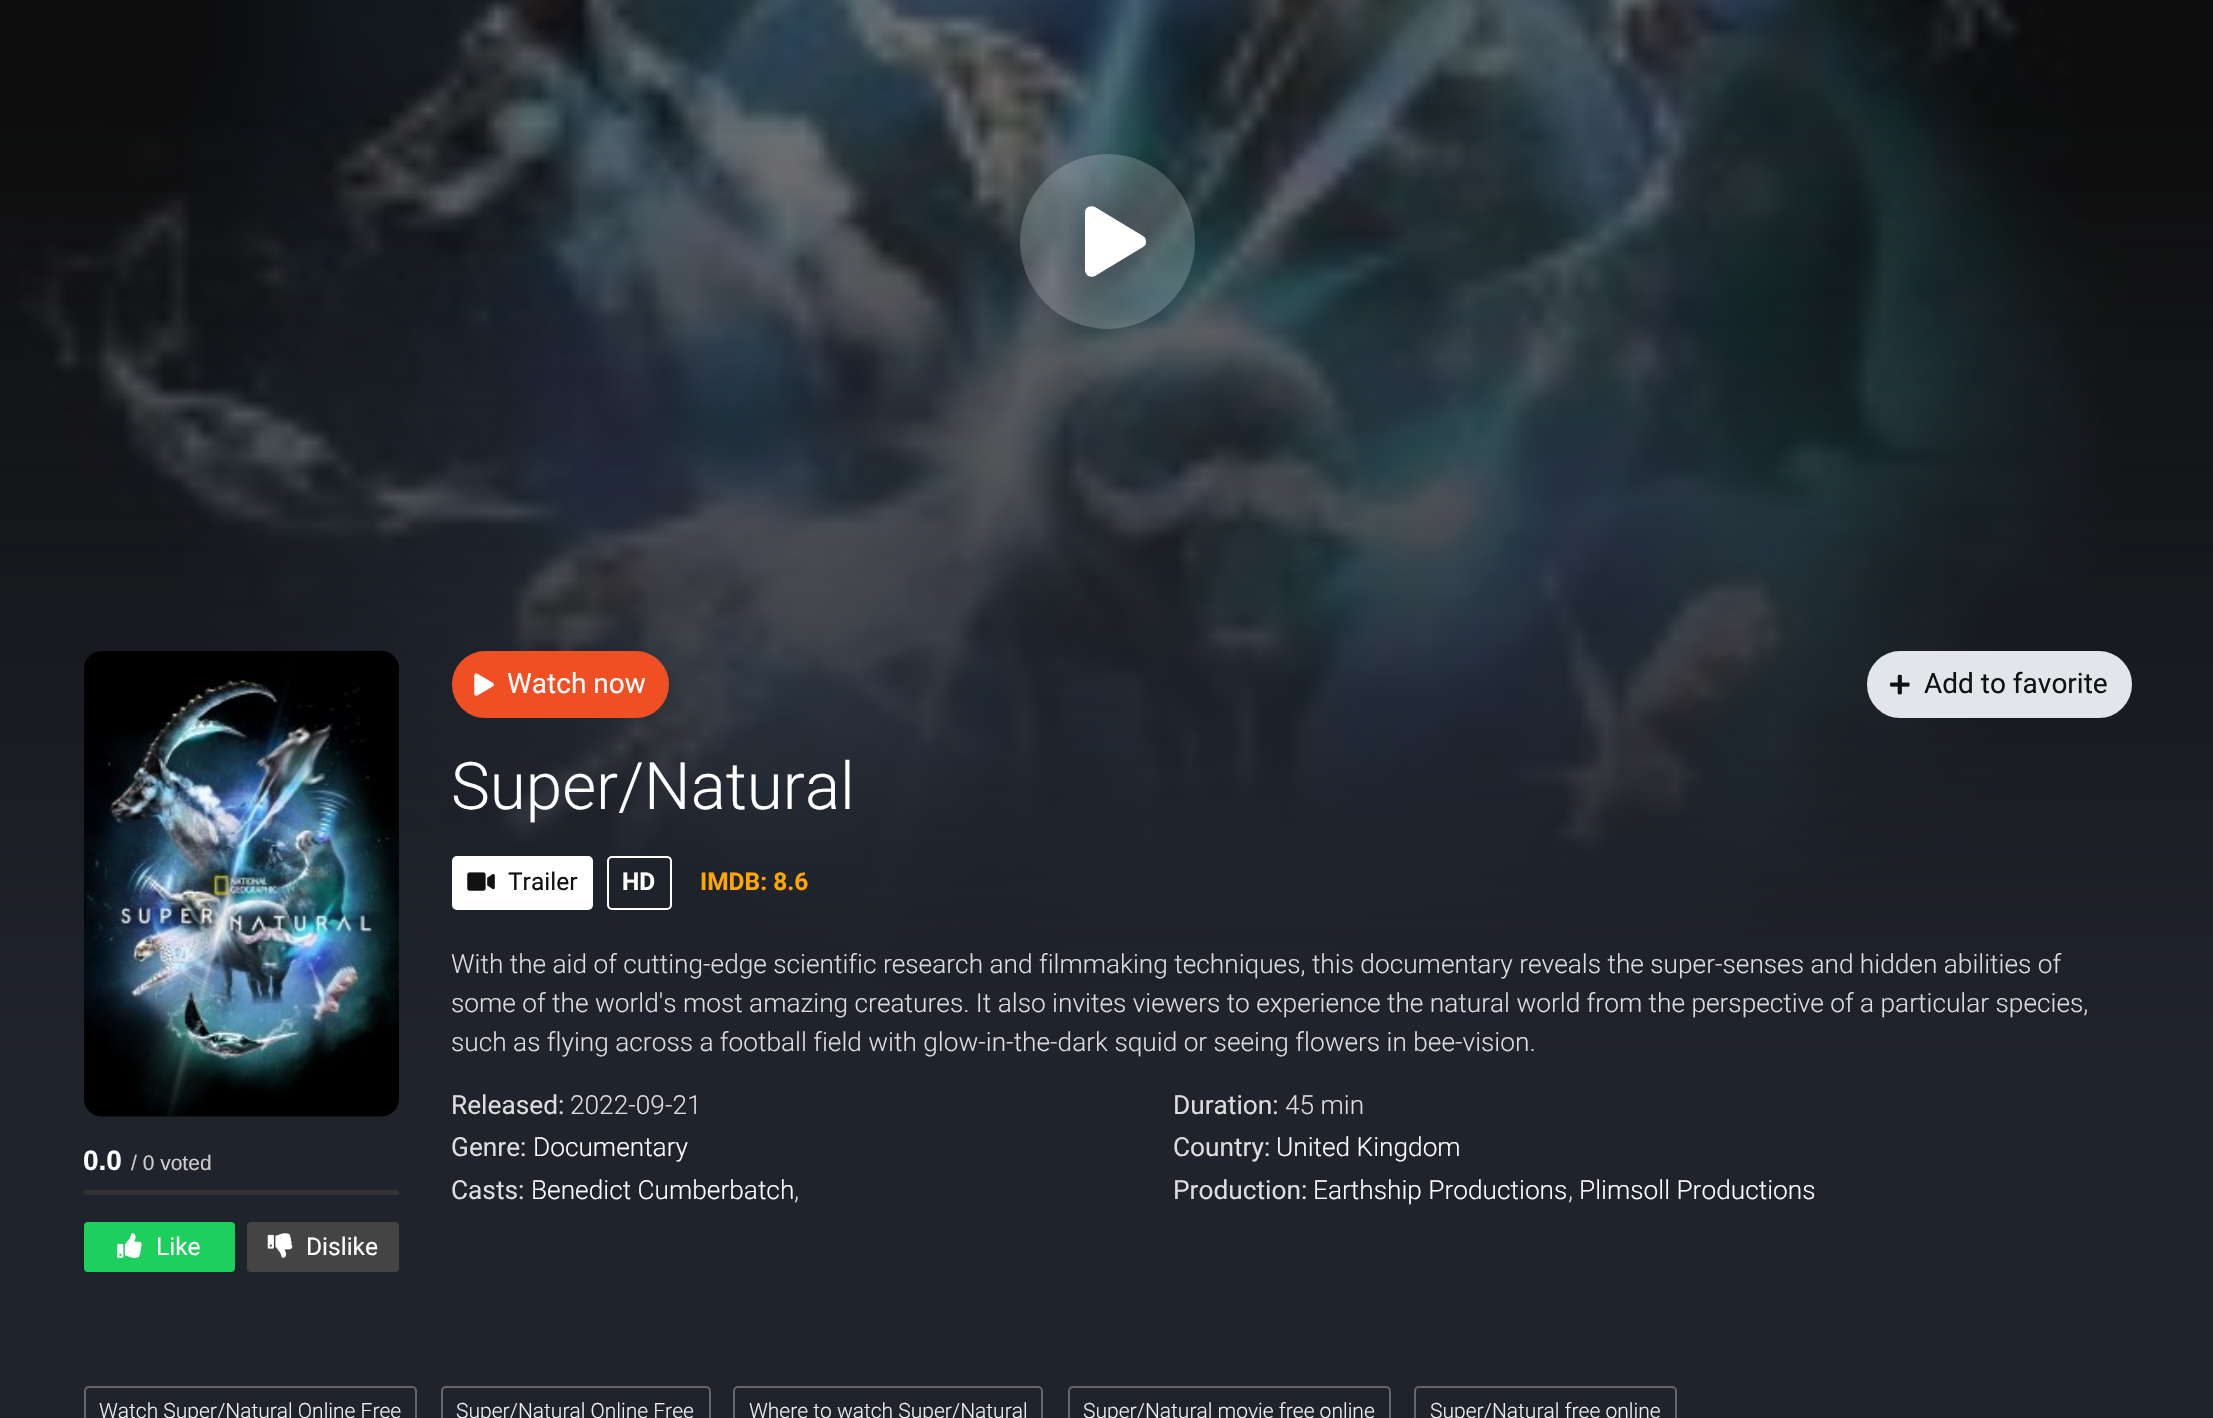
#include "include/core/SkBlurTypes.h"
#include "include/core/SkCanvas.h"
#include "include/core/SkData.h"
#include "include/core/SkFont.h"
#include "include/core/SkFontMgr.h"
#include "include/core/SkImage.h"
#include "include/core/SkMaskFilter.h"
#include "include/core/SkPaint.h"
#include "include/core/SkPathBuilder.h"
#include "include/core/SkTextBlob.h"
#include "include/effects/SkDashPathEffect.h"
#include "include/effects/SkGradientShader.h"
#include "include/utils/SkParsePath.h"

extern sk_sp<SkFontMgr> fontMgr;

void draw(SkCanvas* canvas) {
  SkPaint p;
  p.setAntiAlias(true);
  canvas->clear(SkColorSetRGB(31, 35, 44));
  canvas->drawImageRect(SkImages::DeferredFromEncodedData(SkData::MakeFromFileName("images/1.png")), SkRect::MakeLTRB(0, 0, 2213, 1053), SkSamplingOptions());
  {
    const SkColor colors[] = {SkColorSetARGB(0, 31, 35, 44), SkColorSetRGB(31, 35, 44)};
    const float stops[] = {0, 1};
    const SkPoint ends[] = {{1107, 96}, {1107, 1059}};
    p.setShader(SkGradientShader::MakeLinear(ends, colors, stops, 2, SkTileMode::kClamp));
    p.setAlpha(255);
  }
  canvas->drawRect(SkRect::MakeLTRB(0, 128, 2213, 1053), p);
  p.setShader(nullptr);
  p.setColor(SkColorSetARGB(51, 255, 255, 255));
  canvas->drawCircle(1107.5f, 241.5f, 87.5f, p);
  p.setColor(SK_ColorWHITE);
  canvas->drawPath(SkPathBuilder().moveTo(1143, 236).cubicTo(1145, 237, 1146, 239, 1146, 242).cubicTo(1146, 244, 1145, 246, 1143, 247).lineTo(1095, 276).cubicTo(1093, 277, 1091, 277, 1088, 276).cubicTo(1086, 274, 1085, 272, 1085, 270).lineTo(1085, 213).cubicTo(1085, 210, 1086, 208, 1088, 207).cubicTo(1091, 206, 1093, 206, 1095, 207).close().detach(), p);
  canvas->drawImageRect(SkImages::DeferredFromEncodedData(SkData::MakeFromFileName("images/2.png")), SkRect::MakeLTRB(84, 651, 399, 1117), SkSamplingOptions());
  p.setColor(SkColorSetRGB(51, 51, 51));
  canvas->drawRoundRect(SkRect::MakeLTRB(84, 1190, 399, 1195), 2.5f, 2.5f, p);
  p.setColor(SkColorSetRGB(29, 208, 93));
  canvas->drawRoundRect(SkRect::MakeLTRB(84, 1222, 235, 1272), 4, 4, p);
  canvas->drawImageRect(SkImages::DeferredFromEncodedData(SkData::MakeFromFileName("images/3.png")), SkRect::MakeLTRB(117, 1233, 142, 1258), SkSamplingOptions());
  p.setColor(SkColorSetRGB(68, 68, 68));
  canvas->drawRoundRect(SkRect::MakeLTRB(247, 1222, 399, 1272), 4, 4, p);
  canvas->drawImageRect(SkImages::DeferredFromEncodedData(SkData::MakeFromFileName("images/4.png")), SkRect::MakeLTRB(267, 1233, 293, 1258), SkSamplingOptions());
  p.setColor(SkColorSetRGB(240, 79, 36));
  canvas->drawRoundRect(SkRect::MakeLTRB(453, 652, 668, 717), 32.5f, 32.5f, p);
  p.setStyle(SkPaint::kStroke_Style);
  p.setStrokeWidth(2);
  canvas->drawRoundRect(SkRect::MakeLTRB(453, 652, 668, 717), 32.5f, 32.5f, p);
  canvas->drawImageRect(SkImages::DeferredFromEncodedData(SkData::MakeFromFileName("images/5.png")), SkRect::MakeLTRB(474, 673, 494, 696), SkSamplingOptions());
  p.setStyle(SkPaint::kFill_Style);
  p.setColor(SkColorSetRGB(226, 230, 234));
  canvas->drawRoundRect(SkRect::MakeLTRB(1868, 652, 2131, 717), 32.5f, 32.5f, p);
  p.setStyle(SkPaint::kStroke_Style);
  canvas->drawRoundRect(SkRect::MakeLTRB(1868, 652, 2131, 717), 32.5f, 32.5f, p);
  canvas->drawImageRect(SkImages::DeferredFromEncodedData(SkData::MakeFromFileName("images/6.png")), SkRect::MakeLTRB(1890, 674, 1910, 695), SkSamplingOptions());
  p.setStyle(SkPaint::kFill_Style);
  p.setColor(SK_ColorWHITE);
  canvas->drawRoundRect(SkRect::MakeLTRB(452, 856, 593, 910), 5, 5, p);
  canvas->drawImageRect(SkImages::DeferredFromEncodedData(SkData::MakeFromFileName("images/7.png")), SkRect::MakeLTRB(467, 872, 495, 891), SkSamplingOptions());
  p.setStyle(SkPaint::kStroke_Style);
  canvas->drawRoundRect(SkRect::MakeLTRB(608, 857, 671, 909), 4, 4, p);
  p.setColor(SkColorSetRGB(102, 102, 102));
  canvas->drawRoundRect(SkRect::MakeLTRB(85, 1387, 416, 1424), 4, 4, p);
  canvas->drawRoundRect(SkRect::MakeLTRB(442, 1387, 710, 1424), 4, 4, p);
  canvas->drawRoundRect(SkRect::MakeLTRB(734, 1387, 1042, 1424), 4, 4, p);
  canvas->drawRoundRect(SkRect::MakeLTRB(1069, 1387, 1390, 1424), 4, 4, p);
  canvas->drawRoundRect(SkRect::MakeLTRB(1415, 1387, 1676, 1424), 4, 4, p);
  SkFont font1(fontMgr->matchFamilyStyle("Liberation Sans", SkFontStyle::Bold()), 28);
  font1.setSubpixel(true);
  p.setStyle(SkPaint::kFill_Style);
  p.setColor(SK_ColorWHITE);
  canvas->drawString("0.0", 83, 1170, font1, p);
  SkFont font2(fontMgr->matchFamilyStyle("Liberation Sans", SkFontStyle::Normal()), 21);
  font2.setSubpixel(true);
  p.setColor(SkColorSetRGB(204, 204, 204));
  canvas->drawString("/ 0 voted", 131, 1170, font2, p);
  SkFont font3(fontMgr->matchFamilyStyle("Roboto", SkFontStyle::Normal()), 24.5f);
  font3.setSubpixel(true);
  p.setColor(SK_ColorWHITE);
  canvas->drawString("Like", 156, 1255, font3, p);
  canvas->drawString("Dislike", 306, 1255, font3, p);
  SkFont font4(fontMgr->matchFamilyStyle("Roboto", SkFontStyle::Normal()), 28);
  font4.setSubpixel(true);
  canvas->drawString("Watch now", 507, 693, font4, p);
  p.setColor(SkColorSetRGB(17, 17, 17));
  canvas->drawString("Add to favorite", 1924, 693, font4, p);
  SkFont font5(fontMgr->matchFamilyStyle("Roboto", SkFontStyle(300, SkFontStyle::kNormal_Width, SkFontStyle::kUpright_Slant)), 65.5f);
  font5.setSubpixel(true);
  p.setColor(SK_ColorWHITE);
  canvas->drawString("Super/Natural", 451, 809, font5, p);
  p.setColor(SkColorSetRGB(17, 17, 17));
  canvas->drawString("Trailer", 508, 890, font3, p);
  SkFont font6(fontMgr->matchFamilyStyle("Roboto", SkFontStyle::Bold()), 24.5f);
  font6.setSubpixel(true);
  p.setColor(SK_ColorWHITE);
  canvas->drawString("HD", 622, 890, font6, p);
  p.setColor(SkColorSetRGB(255, 166, 0));
  canvas->drawString("IMDB: 8.6", 700, 890, font6, p);
  SkFont font7(fontMgr->matchFamilyStyle("Roboto", SkFontStyle(300, SkFontStyle::kNormal_Width, SkFontStyle::kUpright_Slant)), 26.25f);
  font7.setSubpixel(true);
  p.setColor(SkColorSetRGB(221, 221, 221));
  canvas->drawString("With the aid of cutting-edge scientific research and filmmaking techniques, this documentary reveals the super-senses and hidden abilities of", 451, 973, font7, p);
  canvas->drawString("some of the world's most amazing creatures. It also invites viewers to experience the natural world from the perspective of a particular species,", 451, 1012, font7, p);
  canvas->drawString("such as flying across a football field with glow-in-the-dark squid or seeing flowers in bee-vision.", 451, 1051, font7, p);
  SkFont font8(fontMgr->matchFamilyStyle("Roboto", SkFontStyle::Normal()), 26.25f);
  font8.setSubpixel(true);
  canvas->drawString("Released:", 451, 1114, font8, p);
  canvas->drawString("2022-09-21", 570, 1114, font7, p);
  canvas->drawString("Genre:", 451, 1156, font8, p);
  p.setColor(SK_ColorWHITE);
  canvas->drawString("Documentary", 533, 1156, font7, p);
  p.setColor(SkColorSetRGB(221, 221, 221));
  canvas->drawString("Casts:", 451, 1199, font8, p);
  p.setColor(SK_ColorWHITE);
  canvas->drawString("Benedict Cumberbatch", 531, 1199, font7, p);
  p.setColor(SkColorSetRGB(221, 221, 221));
  canvas->drawString(",", 794, 1199, font7, p);
  canvas->drawString("Duration:", 1173, 1114, font8, p);
  canvas->drawString("45 min", 1285, 1114, font7, p);
  canvas->drawString("Country:", 1173, 1156, font8, p);
  p.setColor(SK_ColorWHITE);
  canvas->drawString("United Kingdom", 1276, 1156, font7, p);
  p.setColor(SkColorSetRGB(221, 221, 221));
  canvas->drawString("Production:", 1173, 1199, font8, p);
  p.setColor(SK_ColorWHITE);
  canvas->drawString("Earthship Productions", 1313, 1199, font7, p);
  p.setColor(SkColorSetRGB(221, 221, 221));
  canvas->drawString(",", 1568, 1199, font7, p);
  p.setColor(SK_ColorWHITE);
  canvas->drawString("Plimsoll Productions", 1579, 1199, font7, p);
  SkFont font9(fontMgr->matchFamilyStyle("Roboto", SkFontStyle(300, SkFontStyle::kNormal_Width, SkFontStyle::kUpright_Slant)), 21);
  font9.setSubpixel(true);
  p.setColor(SkColorSetRGB(238, 238, 238));
  canvas->drawString("Watch Super/Natural Online Free", 99, 1418, font9, p);
  canvas->drawString("Super/Natural Online Free", 456, 1418, font9, p);
  canvas->drawString("Where to watch Super/Natural", 749, 1418, font9, p);
  canvas->drawString("Super/Natural movie free online", 1083, 1418, font9, p);
  canvas->drawString("Super/Natural free online", 1430, 1418, font9, p);
}
